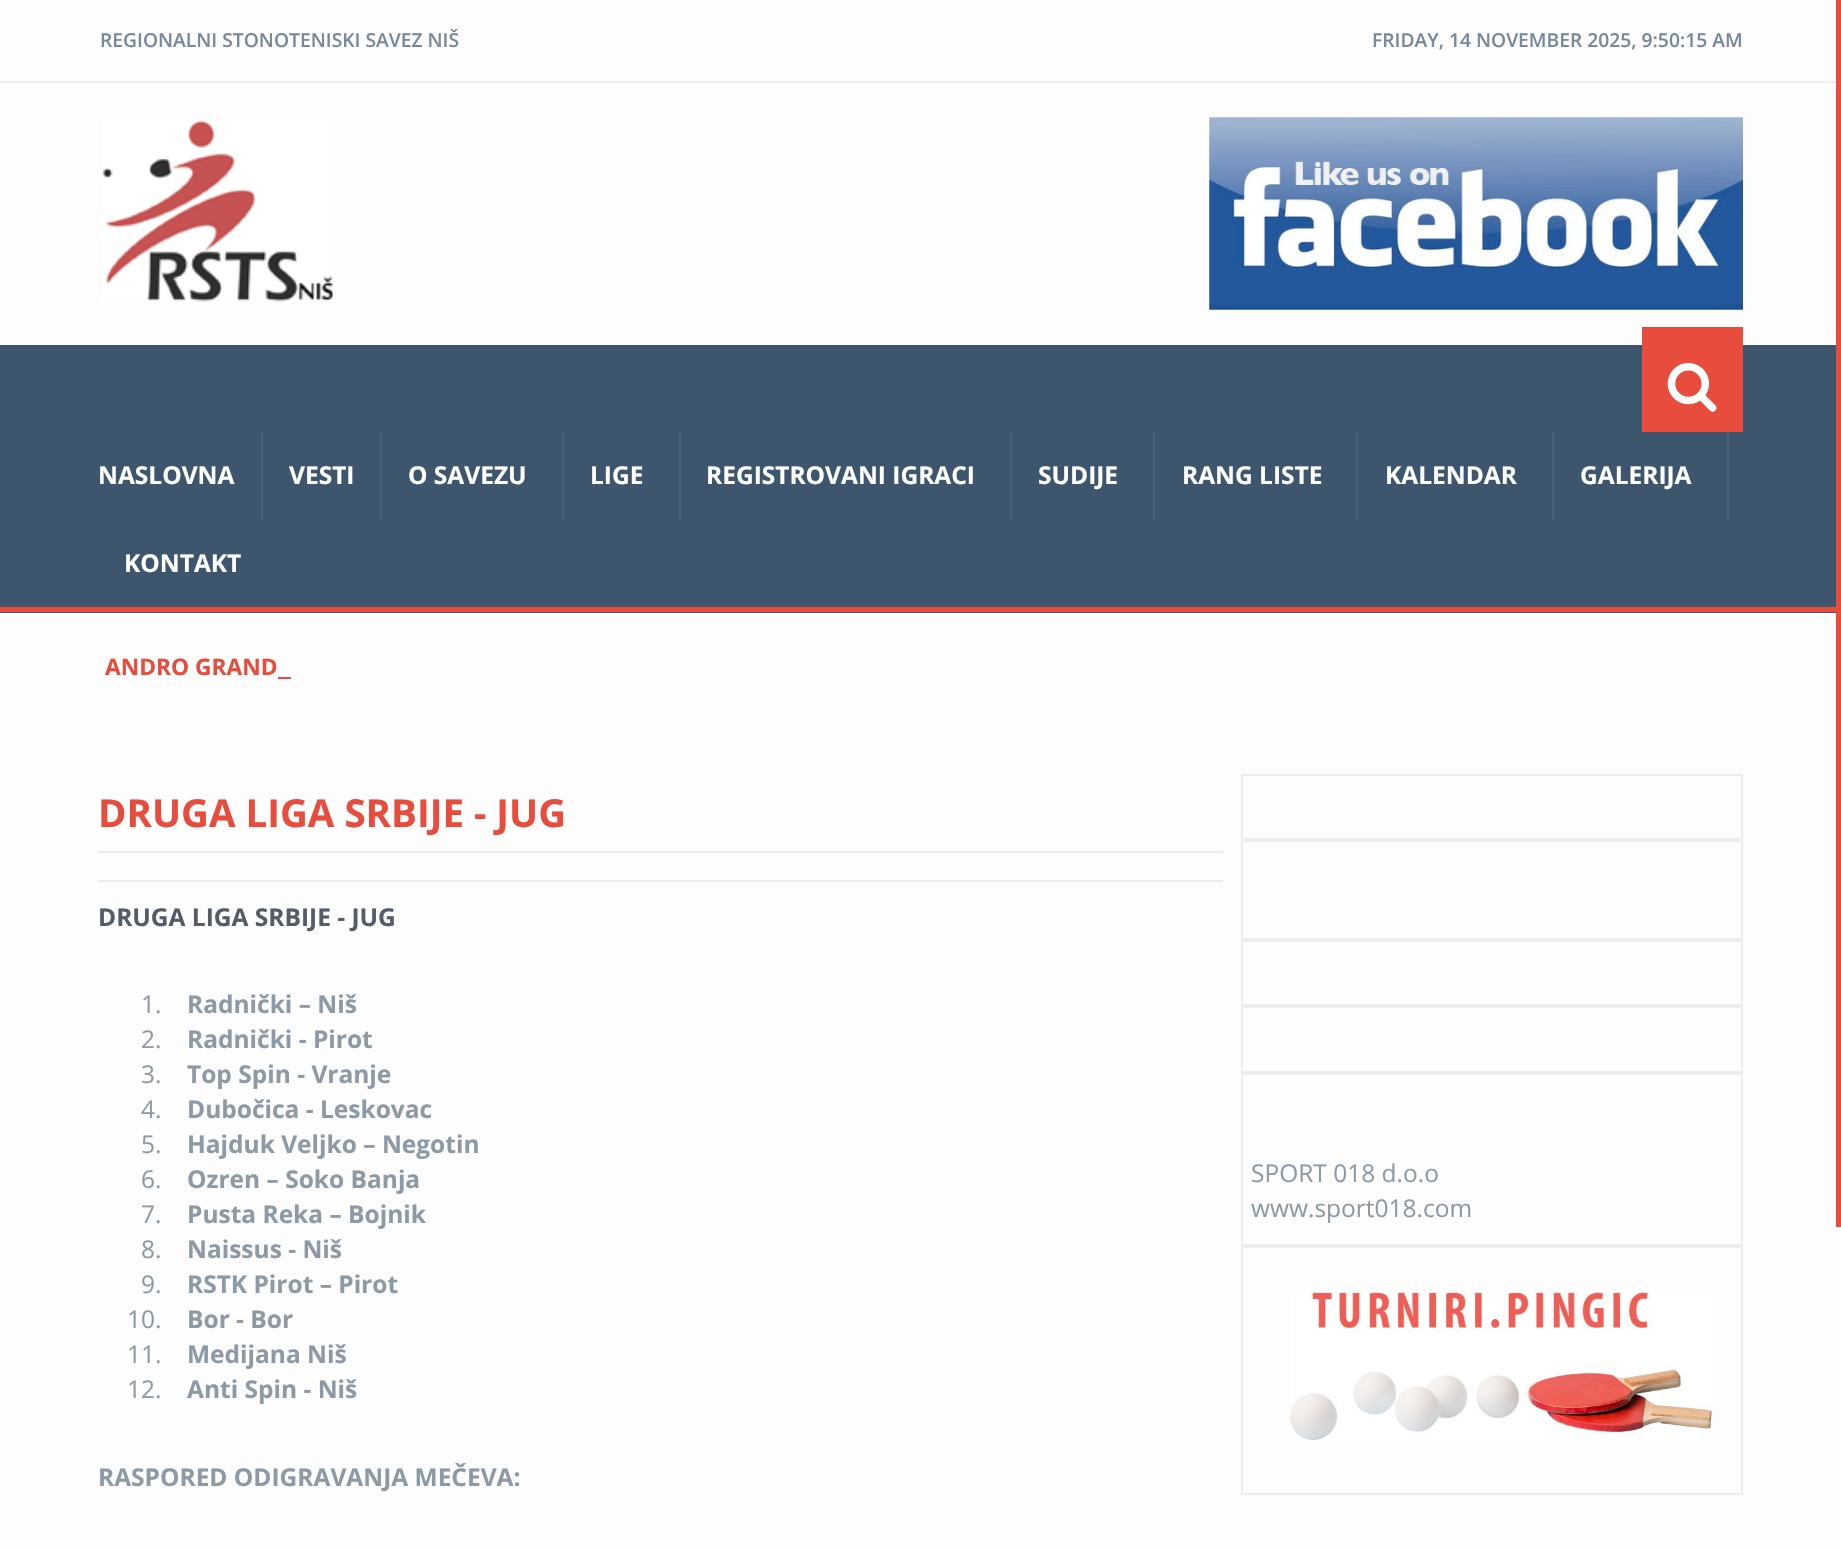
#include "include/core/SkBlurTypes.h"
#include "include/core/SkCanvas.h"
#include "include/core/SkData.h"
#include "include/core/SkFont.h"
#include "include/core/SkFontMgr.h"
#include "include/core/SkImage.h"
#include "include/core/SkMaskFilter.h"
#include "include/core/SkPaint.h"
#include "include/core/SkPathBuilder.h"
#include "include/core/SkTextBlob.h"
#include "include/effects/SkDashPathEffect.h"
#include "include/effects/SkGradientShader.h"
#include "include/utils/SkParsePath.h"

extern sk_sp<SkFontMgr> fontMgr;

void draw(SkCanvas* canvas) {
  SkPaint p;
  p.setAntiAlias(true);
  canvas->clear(SkColorSetRGB(253, 253, 253));
  p.setColor(SkColorSetRGB(236, 240, 241));
  canvas->drawRect(SkRect::MakeLTRB(0, 81, 1841, 83), p);
  canvas->drawImageRect(SkImages::DeferredFromEncodedData(SkData::MakeFromFileName("images/1.png")), SkRect::MakeLTRB(102, 120, 333, 302), SkSamplingOptions());
  canvas->drawImageRect(SkImages::DeferredFromEncodedData(SkData::MakeFromFileName("images/2.png")), SkRect::MakeLTRB(1209, 117, 1743, 310), SkSamplingOptions());
  p.setColor(SkColorSetRGB(61, 86, 110));
  canvas->drawRect(SkRect::MakeLTRB(0, 345, 1836, 613), p);
  p.setColor(SkColorSetRGB(231, 76, 60));
  canvas->drawRect(SkRect::MakeLTRB(0, 607, 1841, 612), p);
  canvas->drawRect(SkRect::MakeLTRB(1642, 327, 1743, 432), p);
  canvas->drawImageRect(SkImages::DeferredFromEncodedData(SkData::MakeFromFileName("images/3.png")), SkRect::MakeLTRB(1667, 363, 1717, 412), SkSamplingOptions());
  p.setColor(SkColorSetRGB(68, 97, 125));
  canvas->drawRect(SkRect::MakeLTRB(261, 432, 263, 520), p);
  canvas->drawRect(SkRect::MakeLTRB(380, 432, 382, 520), p);
  canvas->drawRect(SkRect::MakeLTRB(562, 432, 564, 520), p);
  canvas->drawRect(SkRect::MakeLTRB(679, 432, 681, 520), p);
  canvas->drawRect(SkRect::MakeLTRB(1010, 432, 1012, 520), p);
  canvas->drawRect(SkRect::MakeLTRB(1153, 432, 1155, 520), p);
  canvas->drawRect(SkRect::MakeLTRB(1356, 432, 1358, 520), p);
  canvas->drawRect(SkRect::MakeLTRB(1552, 432, 1554, 520), p);
  canvas->drawRect(SkRect::MakeLTRB(1727, 432, 1729, 520), p);
  p.setColor(SkColorSetRGB(231, 76, 60));
  canvas->drawRect(SkRect::MakeLTRB(278, 677, 291, 679), p);
  p.setColor(SkColorSetRGB(237, 237, 237));
  canvas->drawRect(SkRect::MakeLTRB(98, 851, 1223, 853), p);
  canvas->drawRect(SkRect::MakeLTRB(98, 880, 1223, 882), p);
  p.setStyle(SkPaint::kStroke_Style);
  p.setStrokeWidth(2);
  canvas->drawRect(SkRect::MakeLTRB(1242, 775, 1742, 839), p);
  canvas->drawRect(SkRect::MakeLTRB(1242, 841, 1742, 939), p);
  canvas->drawRect(SkRect::MakeLTRB(1242, 941, 1742, 1005), p);
  canvas->drawRect(SkRect::MakeLTRB(1242, 1007, 1742, 1072), p);
  canvas->drawRect(SkRect::MakeLTRB(1242, 1074, 1742, 1245), p);
  canvas->drawRect(SkRect::MakeLTRB(1242, 1247, 1742, 1494), p);
  canvas->drawImageRect(SkImages::DeferredFromEncodedData(SkData::MakeFromFileName("images/4.png")), SkRect::MakeLTRB(1290, 1290, 1712, 1441), SkSamplingOptions());
  p.setStyle(SkPaint::kFill_Style);
  p.setColor(SkColorSetRGB(231, 76, 60));
  canvas->drawRect(SkRect::MakeLTRB(1836, 0, 1841, 1227), p);
  SkFont font1(fontMgr->matchFamilyStyle("Open Sans", SkFontStyle(600, SkFontStyle::kNormal_Width, SkFontStyle::kUpright_Slant)), 19.25f);
  font1.setSubpixel(true);
  p.setColor(SkColorSetRGB(120, 137, 155));
  canvas->drawString("REGIONALNI STONOTENISKI SAVEZ NIŠ", 100, 47, font1, p);
  canvas->drawString("FRIDAY, 14 NOVEMBER 2025, 9:50:15 AM", 1372, 47, font1, p);
  SkFont font2(fontMgr->matchFamilyStyle("Open Sans", SkFontStyle::Bold()), 24.5f);
  font2.setSubpixel(true);
  p.setColor(SK_ColorWHITE);
  canvas->drawString("NASLOVNA", 98, 484, font2, p);
  canvas->drawString("VESTI", 289, 484, font2, p);
  canvas->drawString("O SAVEZU", 408, 484, font2, p);
  canvas->drawString("LIGE", 590, 484, font2, p);
  canvas->drawString("REGISTROVANI IGRACI", 706, 484, font2, p);
  canvas->drawString("SUDIJE", 1038, 484, font2, p);
  canvas->drawString("RANG LISTE", 1182, 484, font2, p);
  canvas->drawString("KALENDAR", 1385, 484, font2, p);
  canvas->drawString("GALERIJA", 1580, 484, font2, p);
  canvas->drawString("KONTAKT", 124, 572, font2, p);
  SkFont font3(fontMgr->matchFamilyStyle("Open Sans", SkFontStyle::Bold()), 22.75f);
  font3.setSubpixel(true);
  p.setColor(SkColorSetRGB(231, 76, 60));
  canvas->drawString("ANDRO GRAND", 105, 675, font3, p);
  SkFont font4(fontMgr->matchFamilyStyle("Open Sans", SkFontStyle::Bold()), 38.5f);
  font4.setSubpixel(true);
  canvas->drawString("DRUGA LIGA SRBIJE - JUG", 98, 827, font4, p);
  p.setColor(SkColorSetRGB(84, 92, 103));
  canvas->drawString("DRUGA LIGA SRBIJE - JUG", 98, 926, font2, p);
  SkFont font5(fontMgr->matchFamilyStyle("Open Sans", SkFontStyle::Normal()), 24.5f);
  font5.setSubpixel(true);
  p.setColor(SkColorSetRGB(141, 154, 165));
  canvas->drawString("1.", 141, 1013, font5, p);
  canvas->drawString("Radnički – Niš", 187, 1013, font2, p);
  canvas->drawString("2.", 141, 1048, font5, p);
  canvas->drawString("Radnički - Pirot", 187, 1048, font2, p);
  canvas->drawString("3.", 141, 1083, font5, p);
  canvas->drawString("Top Spin - Vranje", 187, 1083, font2, p);
  canvas->drawString("4.", 141, 1118, font5, p);
  canvas->drawString("Dubočica - Leskovac", 187, 1118, font2, p);
  canvas->drawString("5.", 141, 1153, font5, p);
  canvas->drawString("Hajduk Veljko – Negotin", 187, 1153, font2, p);
  canvas->drawString("6.", 141, 1188, font5, p);
  canvas->drawString("Ozren – Soko Banja", 187, 1188, font2, p);
  canvas->drawString("7.", 141, 1223, font5, p);
  canvas->drawString("Pusta Reka – Bojnik", 187, 1223, font2, p);
  canvas->drawString("8.", 141, 1258, font5, p);
  canvas->drawString("Naissus - Niš", 187, 1258, font2, p);
  canvas->drawString("9.", 141, 1293, font5, p);
  canvas->drawString("RSTK Pirot – Pirot", 187, 1293, font2, p);
  canvas->drawString("10.", 127, 1328, font5, p);
  canvas->drawString("Bor - Bor", 187, 1328, font2, p);
  canvas->drawString("11.", 127, 1363, font5, p);
  canvas->drawString("Medijana Niš", 187, 1363, font2, p);
  canvas->drawString("12.", 127, 1398, font5, p);
  canvas->drawString("Anti Spin - Niš", 187, 1398, font2, p);
  canvas->drawString("RASPORED ODIGRAVANJA MEČEVA:", 98, 1486, font2, p);
  canvas->drawString("SPORT 018 d.o.o", 1251, 1182, font5, p);
  canvas->drawString("www.sport018.com", 1251, 1217, font5, p);
}
